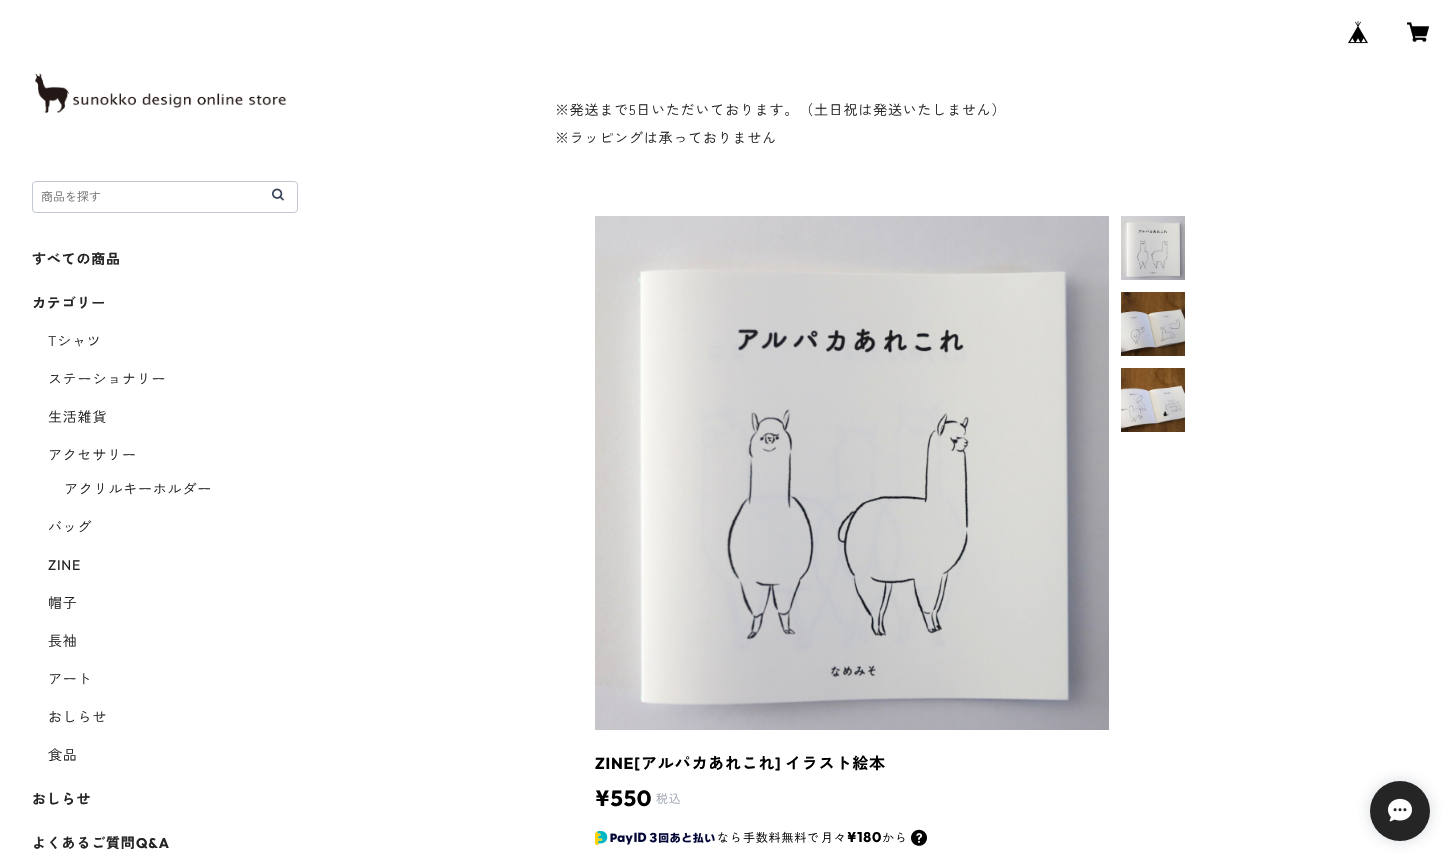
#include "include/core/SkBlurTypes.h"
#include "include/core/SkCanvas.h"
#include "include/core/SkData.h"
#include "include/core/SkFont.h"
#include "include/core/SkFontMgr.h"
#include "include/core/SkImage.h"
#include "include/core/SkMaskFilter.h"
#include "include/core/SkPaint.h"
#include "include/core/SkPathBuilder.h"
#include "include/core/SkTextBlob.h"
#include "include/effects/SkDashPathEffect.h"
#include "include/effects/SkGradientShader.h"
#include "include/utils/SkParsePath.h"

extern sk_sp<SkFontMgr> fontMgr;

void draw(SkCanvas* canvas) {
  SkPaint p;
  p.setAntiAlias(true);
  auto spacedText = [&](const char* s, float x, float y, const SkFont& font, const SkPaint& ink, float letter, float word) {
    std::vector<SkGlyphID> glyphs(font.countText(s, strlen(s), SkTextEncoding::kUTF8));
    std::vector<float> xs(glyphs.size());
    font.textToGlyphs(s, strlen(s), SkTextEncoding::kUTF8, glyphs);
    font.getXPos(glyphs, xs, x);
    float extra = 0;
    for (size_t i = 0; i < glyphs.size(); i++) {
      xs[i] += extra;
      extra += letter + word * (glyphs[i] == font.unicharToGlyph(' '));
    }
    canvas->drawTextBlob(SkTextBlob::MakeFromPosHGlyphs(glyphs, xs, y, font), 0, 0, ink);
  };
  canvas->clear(SK_ColorWHITE);
  canvas->drawImageRect(SkImages::DeferredFromEncodedData(SkData::MakeFromFileName("images/1.png")), SkRect::MakeLTRB(1348, 21, 1368, 44), SkSamplingOptions());
  canvas->drawImageRect(SkImages::DeferredFromEncodedData(SkData::MakeFromFileName("images/2.png")), SkRect::MakeLTRB(1407, 22, 1429, 42), SkSamplingOptions());
  canvas->drawImageRect(SkImages::DeferredFromEncodedData(SkData::MakeFromFileName("images/3.png")), SkRect::MakeLTRB(35, 73, 287, 113), SkSamplingOptions());
  p.setStyle(SkPaint::kStroke_Style);
  p.setStrokeWidth(1);
  p.setColor(SkColorSetRGB(194, 200, 210));
  canvas->drawRoundRect(SkRect::MakeLTRB(32.5f, 181.5f, 297.5f, 212.5f), 3.5f, 3.5f, p);
  canvas->drawImageRect(SkImages::DeferredFromEncodedData(SkData::MakeFromFileName("images/4.png")), SkRect::MakeLTRB(272, 188, 284, 201), SkSamplingOptions());
  canvas->drawImageRect(SkImages::DeferredFromEncodedData(SkData::MakeFromFileName("images/5.png")), SkRect::MakeLTRB(595, 216, 1109, 730), SkSamplingOptions());
  canvas->drawImageRect(SkImages::DeferredFromEncodedData(SkData::MakeFromFileName("images/6.png")), SkRect::MakeLTRB(1121, 216, 1185, 280), SkSamplingOptions());
  canvas->drawImageRect(SkImages::DeferredFromEncodedData(SkData::MakeFromFileName("images/7.png")), SkRect::MakeLTRB(1121, 292, 1185, 356), SkSamplingOptions());
  canvas->drawImageRect(SkImages::DeferredFromEncodedData(SkData::MakeFromFileName("images/8.png")), SkRect::MakeLTRB(1121, 368, 1185, 432), SkSamplingOptions());
  canvas->drawImageRect(SkImages::DeferredFromEncodedData(SkData::MakeFromFileName("images/9.png")), SkRect::MakeLTRB(595, 831, 715, 845), SkSamplingOptions());
  canvas->drawImageRect(SkImages::DeferredFromEncodedData(SkData::MakeFromFileName("images/10.png")), SkRect::MakeLTRB(911, 829, 927, 846), SkSamplingOptions());
  p.setStyle(SkPaint::kFill_Style);
  p.setColor(SkColorSetARGB(51, 51, 66, 88));
  p.setMaskFilter(SkMaskFilter::MakeBlur(kNormal_SkBlurStyle, 7.5f));
  canvas->drawRoundRect(SkRect::MakeLTRB(1370, 781, 1430, 841), 30, 30, p);
  p.setMaskFilter(nullptr);
  p.setColor(SkColorSetRGB(37, 37, 37));
  canvas->drawCircle(1400, 811, 30, p);
  canvas->drawImageRect(SkImages::DeferredFromEncodedData(SkData::MakeFromFileName("images/11.png")), SkRect::MakeLTRB(1388, 798, 1412, 822), SkSamplingOptions());
  SkFont font1(fontMgr->matchFamilyStyle("Zen Kaku Gothic New", SkFontStyle::Normal()), 12);
  font1.setSubpixel(true);
  p.setColor(SkColorSetRGB(117, 117, 117));
  canvas->drawString("商品を探す", 41, 201, font1, p);
  SkFont font2(fontMgr->matchFamilyStyle("Zen Kaku Gothic New", SkFontStyle::Bold()), 14);
  font2.setSubpixel(true);
  p.setColor(SkColorSetRGB(37, 37, 37));
  spacedText("すべての商品", 32, 264, font2, p, 0.8f, 0);
  spacedText("カテゴリー", 32, 308, font2, p, 0.8f, 0);
  SkFont font3(fontMgr->matchFamilyStyle("Zen Kaku Gothic New", SkFontStyle::Normal()), 14);
  font3.setSubpixel(true);
  spacedText("Tシャツ", 48, 346, font3, p, 0.8f, 0);
  spacedText("ステーショナリー", 48, 384, font3, p, 0.8f, 0);
  spacedText("生活雑貨", 48, 422, font3, p, 0.8f, 0);
  spacedText("アクセサリー", 48, 460, font3, p, 0.8f, 0);
  spacedText("アクリルキーホルダー", 64, 494, font3, p, 0.8f, 0);
  spacedText("バッグ", 48, 532, font3, p, 0.8f, 0);
  SkFont font4(fontMgr->matchFamilyStyle("Outfit", SkFontStyle::Normal()), 14);
  font4.setSubpixel(true);
  spacedText("ZINE", 48, 570, font4, p, 0.8f, 0);
  spacedText("帽子", 48, 608, font3, p, 0.8f, 0);
  spacedText("長袖", 48, 646, font3, p, 0.8f, 0);
  spacedText("アート", 48, 684, font3, p, 0.8f, 0);
  spacedText("おしらせ", 48, 722, font3, p, 0.8f, 0);
  spacedText("食品", 48, 760, font3, p, 0.8f, 0);
  spacedText("おしらせ", 32, 804, font2, p, 0.8f, 0);
  spacedText("よくあるご質問", 32, 848, font2, p, 0.8f, 0);
  SkFont font5(fontMgr->matchFamilyStyle("Outfit", SkFontStyle::Bold()), 14);
  font5.setSubpixel(true);
  spacedText("Q&A", 136, 848, font5, p, 0.8f, 0);
  spacedText("※発送まで5日いただいております。（土日祝は発送いたしません）", 555, 115, font3, p, 0.8f, 0);
  spacedText("※ラッピングは承っておりません", 555, 143, font3, p, 0.8f, 0);
  SkFont font6(fontMgr->matchFamilyStyle("Outfit", SkFontStyle::Bold()), 16);
  font6.setSubpixel(true);
  p.setColor(SK_ColorBLACK);
  spacedText("ZINE[", 595, 769, font6, p, 0.8f, 0);
  SkFont font7(fontMgr->matchFamilyStyle("Zen Kaku Gothic New", SkFontStyle::Bold()), 16);
  font7.setSubpixel(true);
  spacedText("アルパカあれこれ", 641, 769, font7, p, 0.8f, 0);
  spacedText("]", 775, 769, font6, p, 0.8f, 0);
  spacedText("イラスト絵本", 785, 769, font7, p, 0.8f, 0);
  SkFont font8(fontMgr->matchFamilyStyle("Outfit", SkFontStyle::Bold()), 22);
  font8.setSubpixel(true);
  spacedText("¥550", 595, 806, font8, p, 0.8f, 0);
  p.setColor(SkColorSetRGB(160, 167, 180));
  spacedText("税込", 656, 803, font1, p, 0.8f, 0);
  p.setColor(SK_ColorBLACK);
  spacedText("なら", 717, 842, font1, p, 0.8f, 0);
  spacedText("手数料無料で", 743, 842, font1, p, 0.8f, 0);
  spacedText("月々", 821, 842, font1, p, 0.8f, 0);
  spacedText("¥180", 847, 842, font5, p, 0.8f, 0);
  spacedText("から", 882, 842, font1, p, 0.8f, 0);
}
